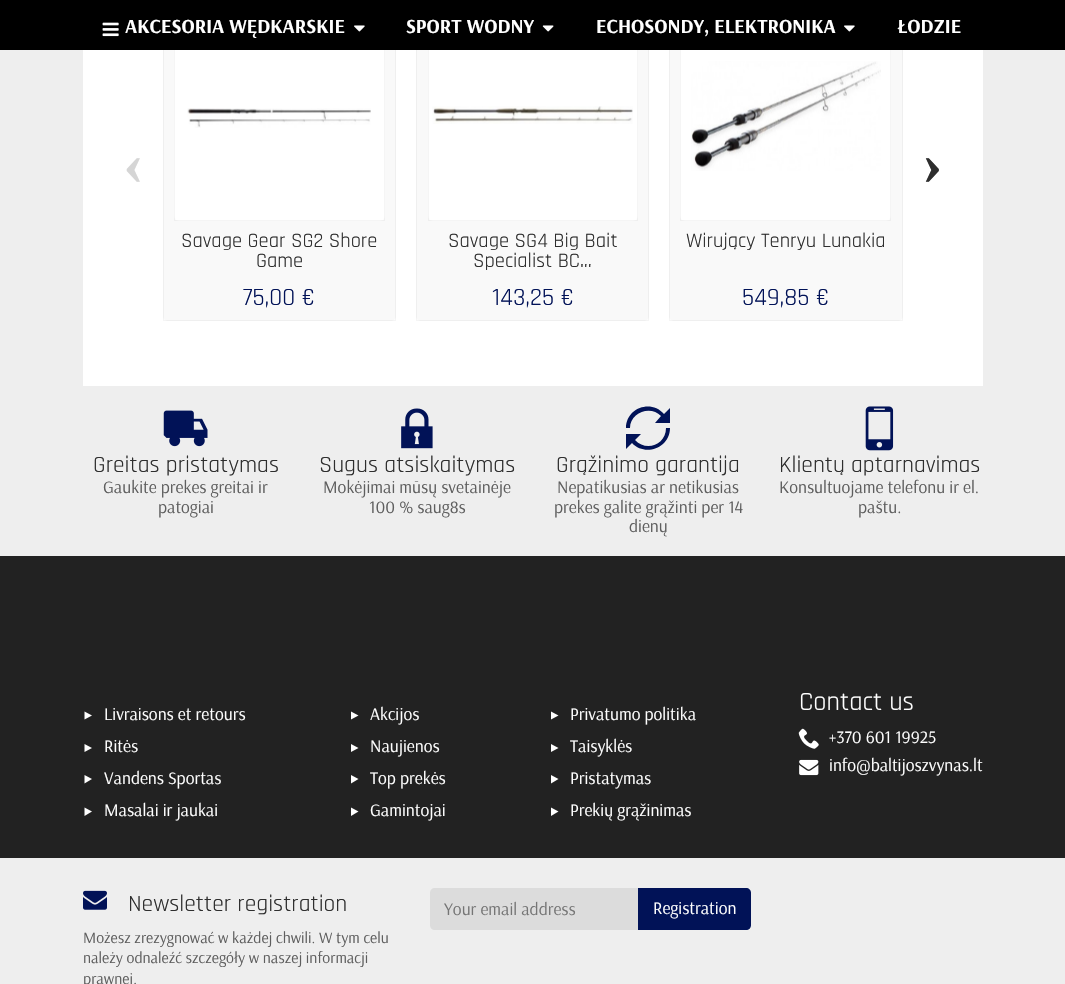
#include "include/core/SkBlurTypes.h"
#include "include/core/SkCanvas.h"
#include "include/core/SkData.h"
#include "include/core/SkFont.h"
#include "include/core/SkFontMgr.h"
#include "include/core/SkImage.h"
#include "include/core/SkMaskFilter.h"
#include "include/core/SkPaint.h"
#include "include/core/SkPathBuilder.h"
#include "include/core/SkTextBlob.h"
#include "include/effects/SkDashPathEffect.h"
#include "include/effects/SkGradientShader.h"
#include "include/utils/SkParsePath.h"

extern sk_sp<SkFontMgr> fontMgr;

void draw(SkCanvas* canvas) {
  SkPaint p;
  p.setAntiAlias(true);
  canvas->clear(SkColorSetRGB(238, 238, 238));
  p.setColor(SK_ColorWHITE);
  canvas->drawRect(SkRect::MakeLTRB(83, 50, 983, 386), p);
  p.setColor(SkColorSetRGB(249, 249, 249));
  canvas->drawRoundRect(SkRect::MakeLTRB(163, 0, 396, 321), 5, 5, p);
  p.setStyle(SkPaint::kStroke_Style);
  p.setStrokeWidth(1);
  p.setColor(SkColorSetARGB(10, 0, 0, 0));
  canvas->drawRect(SkRect::MakeLTRB(163.5f, 0.5f, 395.5f, 320.5f), p);
  p.setStyle(SkPaint::kFill_Style);
  p.setColor(SK_ColorWHITE);
  canvas->drawRoundRect(SkRect::MakeLTRB(174, 11, 385, 221), 5, 5, p);
  p.setStyle(SkPaint::kStroke_Style);
  p.setColor(SkColorSetARGB(10, 0, 0, 0));
  canvas->drawRect(SkRect::MakeLTRB(174.5f, 11.5f, 384.5f, 220.5f), p);
  p.setStyle(SkPaint::kFill_Style);
  p.setColor(SkColorSetRGB(249, 249, 249));
  canvas->drawRoundRect(SkRect::MakeLTRB(416, 0, 649, 321), 5, 5, p);
  p.setStyle(SkPaint::kStroke_Style);
  p.setColor(SkColorSetARGB(10, 0, 0, 0));
  canvas->drawRect(SkRect::MakeLTRB(416.5f, 0.5f, 648.5f, 320.5f), p);
  p.setStyle(SkPaint::kFill_Style);
  p.setColor(SK_ColorWHITE);
  canvas->drawRoundRect(SkRect::MakeLTRB(428, 11, 638, 221), 5, 5, p);
  p.setStyle(SkPaint::kStroke_Style);
  p.setColor(SkColorSetARGB(10, 0, 0, 0));
  canvas->drawRect(SkRect::MakeLTRB(428.5f, 11.5f, 637.5f, 220.5f), p);
  p.setStyle(SkPaint::kFill_Style);
  p.setColor(SkColorSetRGB(249, 249, 249));
  canvas->drawRoundRect(SkRect::MakeLTRB(669, 0, 903, 321), 5, 5, p);
  p.setStyle(SkPaint::kStroke_Style);
  p.setColor(SkColorSetARGB(10, 0, 0, 0));
  canvas->drawRect(SkRect::MakeLTRB(669.5f, 0.5f, 902.5f, 320.5f), p);
  p.setStyle(SkPaint::kFill_Style);
  p.setColor(SK_ColorWHITE);
  canvas->drawRoundRect(SkRect::MakeLTRB(680, 11, 891, 221), 5, 5, p);
  p.setStyle(SkPaint::kStroke_Style);
  p.setColor(SkColorSetARGB(10, 0, 0, 0));
  canvas->drawRect(SkRect::MakeLTRB(680.5f, 11.5f, 890.5f, 220.5f), p);
  p.setStyle(SkPaint::kFill_Style);
  p.setColor(SK_ColorBLACK);
  canvas->drawRect(SkRect::MakeLTRB(0, 0, 1065, 50), p);
  canvas->drawImageRect(SkImages::DeferredFromEncodedData(SkData::MakeFromFileName("images/1.png")), SkRect::MakeLTRB(102, 22, 119, 37), SkSamplingOptions());
  canvas->drawImageRect(SkImages::DeferredFromEncodedData(SkData::MakeFromFileName("images/2.png")), SkRect::MakeLTRB(354, 25, 365, 32), SkSamplingOptions());
  canvas->drawImageRect(SkImages::DeferredFromEncodedData(SkData::MakeFromFileName("images/3.png")), SkRect::MakeLTRB(542, 25, 554, 32), SkSamplingOptions());
  canvas->drawImageRect(SkImages::DeferredFromEncodedData(SkData::MakeFromFileName("images/2.png")), SkRect::MakeLTRB(844, 25, 855, 32), SkSamplingOptions());
  canvas->drawImageRect(SkImages::DeferredFromEncodedData(SkData::MakeFromFileName("images/4.png")), SkRect::MakeLTRB(187, 108, 371, 128), SkSamplingOptions());
  canvas->drawImageRect(SkImages::DeferredFromEncodedData(SkData::MakeFromFileName("images/5.png")), SkRect::MakeLTRB(432, 106, 633, 124), SkSamplingOptions());
  canvas->drawImageRect(SkImages::DeferredFromEncodedData(SkData::MakeFromFileName("images/6.png")), SkRect::MakeLTRB(691, 61, 881, 171), SkSamplingOptions());
  canvas->drawImageRect(SkImages::DeferredFromEncodedData(SkData::MakeFromFileName("images/7.png")), SkRect::MakeLTRB(163, 410, 208, 447), SkSamplingOptions());
  canvas->drawImageRect(SkImages::DeferredFromEncodedData(SkData::MakeFromFileName("images/8.png")), SkRect::MakeLTRB(401, 408, 433, 449), SkSamplingOptions());
  p.setColor(SkColorSetRGB(1, 18, 87));
  canvas->drawPath(SkPathBuilder().moveTo(664, 414).cubicTo(651, 399, 626, 408, 626, 428).lineTo(630, 428).cubicTo(630, 412, 651, 405, 661, 416).lineTo(655, 423).lineTo(670, 423).lineTo(670, 408).close().moveTo(666, 428).cubicTo(666, 445, 646, 452, 635, 440).lineTo(641, 434).lineTo(626, 434).lineTo(626, 449).lineTo(632, 443).cubicTo(645, 457, 670, 448, 670, 428).close().detach(), p);
  canvas->drawImageRect(SkImages::DeferredFromEncodedData(SkData::MakeFromFileName("images/9.png")), SkRect::MakeLTRB(865, 406, 894, 451), SkSamplingOptions());
  p.setColor(SkColorSetRGB(34, 34, 34));
  canvas->drawRect(SkRect::MakeLTRB(0, 556, 1065, 858), p);
  p.setColor(SK_ColorWHITE);
  canvas->drawPath(SkPathBuilder().moveTo(92, 715.5f).lineTo(84.5f, 719.5f).lineTo(84.5f, 711.5f).close().detach(), p);
  canvas->drawPath(SkPathBuilder().moveTo(92, 748).lineTo(84.5f, 752).lineTo(84.5f, 744).close().detach(), p);
  canvas->drawPath(SkPathBuilder().moveTo(92, 779).lineTo(84.5f, 783.5f).lineTo(84.5f, 775).close().detach(), p);
  canvas->drawPath(SkPathBuilder().moveTo(92, 811.5f).lineTo(84.5f, 816).lineTo(84.5f, 807.5f).close().detach(), p);
  canvas->drawPath(SkPathBuilder().moveTo(358.5f, 715.5f).lineTo(351, 719.5f).lineTo(351, 711.5f).close().detach(), p);
  canvas->drawPath(SkPathBuilder().moveTo(358.5f, 748).lineTo(351, 752).lineTo(351, 744).close().detach(), p);
  canvas->drawPath(SkPathBuilder().moveTo(358.5f, 779).lineTo(351, 783.5f).lineTo(351, 775).close().detach(), p);
  canvas->drawPath(SkPathBuilder().moveTo(358.5f, 811.5f).lineTo(351, 816).lineTo(351, 807.5f).close().detach(), p);
  canvas->drawPath(SkPathBuilder().moveTo(558.5f, 715.5f).lineTo(551, 719.5f).lineTo(551, 711.5f).close().detach(), p);
  canvas->drawPath(SkPathBuilder().moveTo(558.5f, 748).lineTo(551, 752).lineTo(551, 744).close().detach(), p);
  canvas->drawPath(SkPathBuilder().moveTo(558.5f, 779).lineTo(551, 783.5f).lineTo(551, 775).close().detach(), p);
  canvas->drawPath(SkPathBuilder().moveTo(558.5f, 811.5f).lineTo(551, 816).lineTo(551, 807.5f).close().detach(), p);
  canvas->drawImageRect(SkImages::DeferredFromEncodedData(SkData::MakeFromFileName("images/10.png")), SkRect::MakeLTRB(798, 728, 819, 749), SkSamplingOptions());
  canvas->drawImageRect(SkImages::DeferredFromEncodedData(SkData::MakeFromFileName("images/11.png")), SkRect::MakeLTRB(799, 759, 819, 776), SkSamplingOptions());
  canvas->drawImageRect(SkImages::DeferredFromEncodedData(SkData::MakeFromFileName("images/12.png")), SkRect::MakeLTRB(83, 890, 107, 910), SkSamplingOptions());
  p.setColor(SkColorSetRGB(220, 220, 220));
  canvas->drawPath(SkPathBuilder().moveTo(435, 888).lineTo(638, 888).lineTo(638, 930).lineTo(435, 930).cubicTo(432, 930, 430, 928, 430, 925).lineTo(430, 893).cubicTo(430, 890, 432, 888, 435, 888).close().detach(), p);
  p.setColor(SkColorSetRGB(1, 18, 87));
  canvas->drawPath(SkPathBuilder().moveTo(638, 888).lineTo(746, 888).cubicTo(749, 888, 751, 890, 751, 893).lineTo(751, 925).cubicTo(751, 928, 749, 930, 746, 930).lineTo(638, 930).close().detach(), p);
  SkFont font1(fontMgr->matchFamilyStyle("Arsenal", SkFontStyle::Bold()), 20);
  font1.setSubpixel(true);
  p.setColor(SK_ColorWHITE);
  canvas->drawString("AKCESORIA WĘDKARSKIE", 125, 33, font1, p);
  canvas->drawString("SPORT WODNY", 406, 33, font1, p);
  canvas->drawString("ECHOSONDY, ELEKTRONIKA", 596, 33, font1, p);
  canvas->drawString("ŁODZIE", 897, 33, font1, p);
  SkFont font2(fontMgr->matchFamilyStyle("Liberation Serif", SkFontStyle::Bold()), 62);
  font2.setSubpixel(true);
  p.setColor(SkColorSetRGB(213, 213, 213));
  canvas->drawString("‹", 123, 184, font2, p);
  p.setColor(SkColorSetRGB(46, 46, 46));
  canvas->drawString("›", 922, 184, font2, p);
  SkFont font3(fontMgr->matchFamilyStyle("Rajdhani", SkFontStyle::Normal()), 20.5f);
  font3.setSubpixel(true);
  canvas->drawString("Savage Gear SG2 Shore", 181, 247, font3, p);
  canvas->drawString("Game", 256, 267, font3, p);
  SkFont font4(fontMgr->matchFamilyStyle("Rajdhani", SkFontStyle::Normal()), 25);
  font4.setSubpixel(true);
  p.setColor(SkColorSetRGB(1, 18, 87));
  canvas->drawString("75,00 €", 243, 305, font4, p);
  p.setColor(SkColorSetRGB(46, 46, 46));
  canvas->drawString("Savage SG4 Big Bait", 448, 247, font3, p);
  canvas->drawString("Specialist BC...", 473, 267, font3, p);
  p.setColor(SkColorSetRGB(1, 18, 87));
  canvas->drawString("143,25 €", 492, 305, font4, p);
  p.setColor(SkColorSetRGB(46, 46, 46));
  canvas->drawString("Wirujący Tenryu Lunakia", 686, 247, font3, p);
  p.setColor(SkColorSetRGB(1, 18, 87));
  canvas->drawString("549,85 €", 742, 305, font4, p);
  SkFont font5(fontMgr->matchFamilyStyle("Rajdhani", SkFontStyle::Normal()), 23.5f);
  font5.setSubpixel(true);
  p.setColor(SkColorSetRGB(46, 46, 46));
  canvas->drawString("Greitas pristatymas", 93, 472, font5, p);
  SkFont font6(fontMgr->matchFamilyStyle("Arsenal", SkFontStyle::Normal()), 17.5f);
  font6.setSubpixel(true);
  p.setColor(SkColorSetRGB(94, 94, 94));
  canvas->drawString("Gaukite prekes greitai ir", 103, 493, font6, p);
  canvas->drawString("patogiai", 158, 513, font6, p);
  p.setColor(SkColorSetRGB(46, 46, 46));
  canvas->drawString("Sugus atsiskaitymas", 319, 472, font5, p);
  p.setColor(SkColorSetRGB(94, 94, 94));
  canvas->drawString("Mokėjimai mūsų svetainėje", 323, 493, font6, p);
  canvas->drawString("100 % saug8s", 369, 513, font6, p);
  p.setColor(SkColorSetRGB(46, 46, 46));
  canvas->drawString("Grąžinimo garantija", 556, 472, font5, p);
  p.setColor(SkColorSetRGB(94, 94, 94));
  canvas->drawString("Nepatikusias ar netikusias", 557, 493, font6, p);
  canvas->drawString("prekes galite grąžinti per 14", 554, 513, font6, p);
  canvas->drawString("dienų", 629, 532, font6, p);
  p.setColor(SkColorSetRGB(46, 46, 46));
  canvas->drawString("Klientų aptarnavimas", 779, 472, font5, p);
  p.setColor(SkColorSetRGB(94, 94, 94));
  canvas->drawString("Konsultuojame telefonu ir el.", 779, 493, font6, p);
  canvas->drawString("paštu.", 858, 513, font6, p);
  p.setColor(SK_ColorWHITE);
  canvas->drawString("Livraisons et retours", 104, 720, font6, p);
  canvas->drawString("Ritės", 104, 752, font6, p);
  canvas->drawString("Vandens Sportas", 104, 784, font6, p);
  canvas->drawString("Masalai ir jaukai", 104, 816, font6, p);
  canvas->drawString("Akcijos", 370, 720, font6, p);
  canvas->drawString("Naujienos", 370, 752, font6, p);
  canvas->drawString("Top prekės", 370, 784, font6, p);
  canvas->drawString("Gamintojai", 370, 816, font6, p);
  canvas->drawString("Privatumo politika", 570, 720, font6, p);
  canvas->drawString("Taisyklės", 570, 752, font6, p);
  canvas->drawString("Pristatymas", 570, 784, font6, p);
  canvas->drawString("Prekių grąžinimas", 570, 816, font6, p);
  SkFont font7(fontMgr->matchFamilyStyle("Rajdhani", SkFontStyle::Normal()), 26.5f);
  font7.setSubpixel(true);
  canvas->drawString("Contact us", 799, 710, font7, p);
  canvas->drawString("+370 601 19925", 829, 743, font6, p);
  canvas->drawString("info@baltijoszvynas.lt", 829, 771, font6, p);
  p.setColor(SkColorSetRGB(46, 46, 46));
  canvas->drawString("Newsletter registration", 128, 911, font5, p);
  SkFont font8(fontMgr->matchFamilyStyle("Arsenal", SkFontStyle::Normal()), 15.75f);
  font8.setSubpixel(true);
  p.setColor(SkColorSetRGB(94, 94, 94));
  canvas->drawString("Możesz zrezygnować w każdej chwili. W tym celu", 83, 943, font8, p);
  canvas->drawString("należy odnaleźć szczegóły w naszej informacji", 83, 963, font8, p);
  canvas->drawString("prawnej.", 83, 984, font8, p);
  p.setColor(SkColorSetRGB(117, 117, 117));
  canvas->drawString("Your email address", 444, 915, font6, p);
  p.setColor(SK_ColorWHITE);
  canvas->drawString("Registration", 653, 914, font6, p);
}
